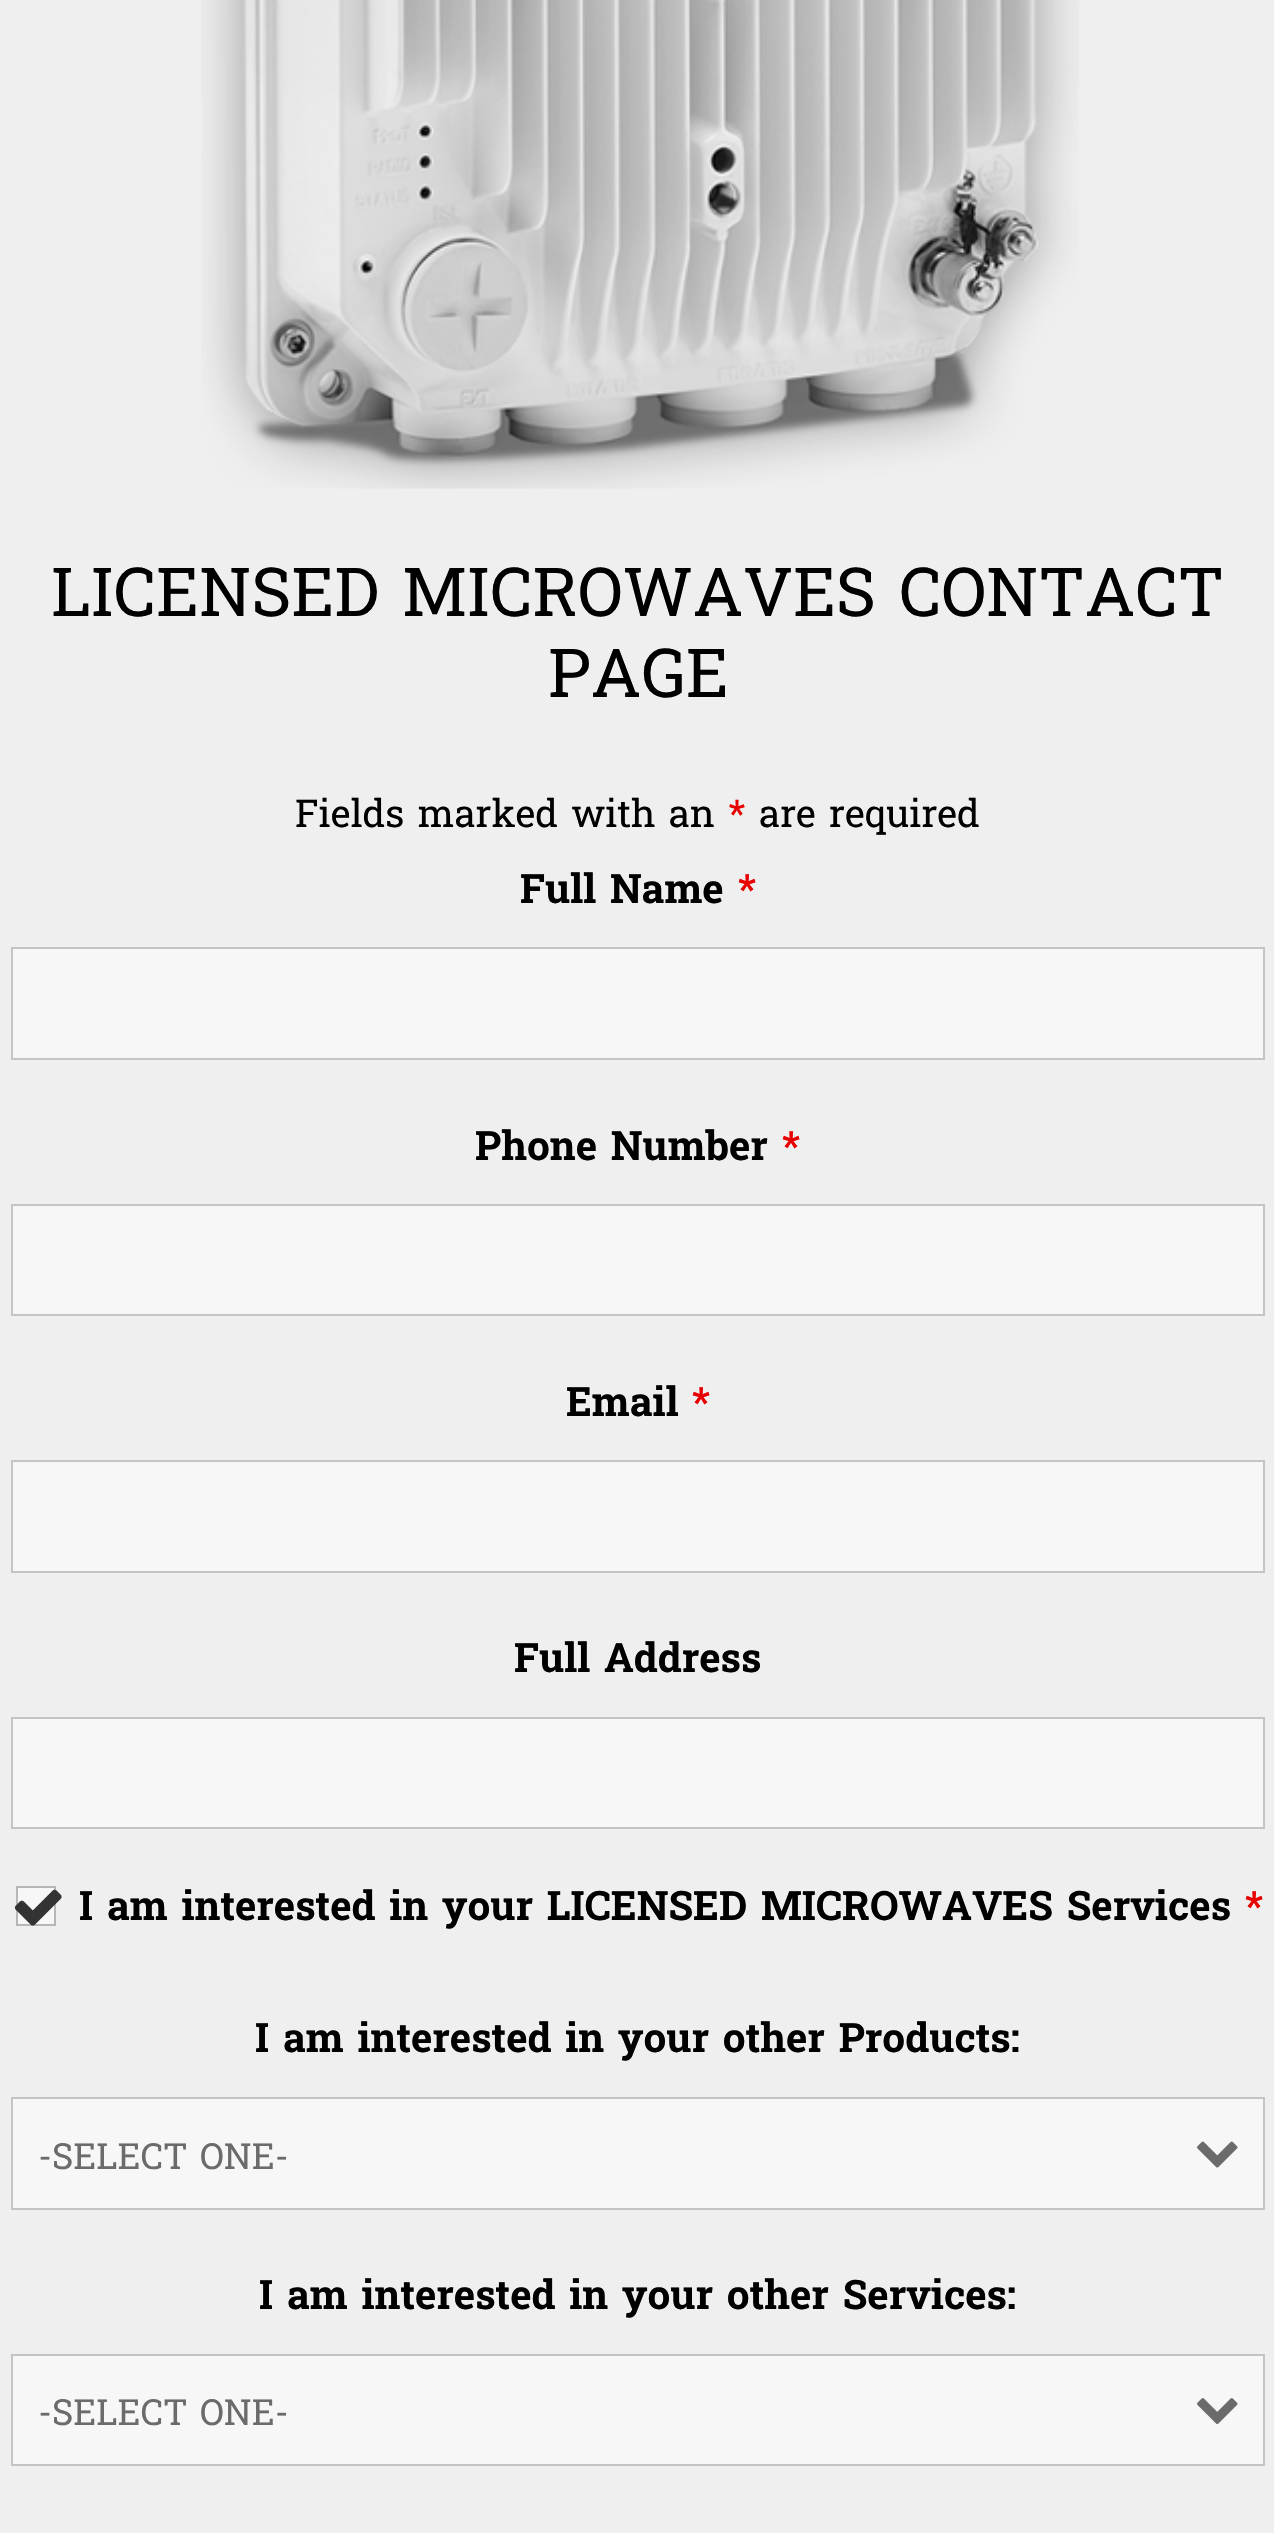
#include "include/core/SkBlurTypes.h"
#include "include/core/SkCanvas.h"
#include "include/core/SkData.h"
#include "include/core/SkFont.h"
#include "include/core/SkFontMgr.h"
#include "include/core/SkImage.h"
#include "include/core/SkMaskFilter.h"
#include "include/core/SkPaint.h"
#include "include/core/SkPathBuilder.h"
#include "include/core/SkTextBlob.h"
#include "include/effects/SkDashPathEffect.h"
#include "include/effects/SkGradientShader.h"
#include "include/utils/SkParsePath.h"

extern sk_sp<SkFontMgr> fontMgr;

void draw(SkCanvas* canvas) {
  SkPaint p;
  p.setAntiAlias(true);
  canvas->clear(SkColorSetRGB(239, 239, 239));
  canvas->drawImageRect(SkImages::DeferredFromEncodedData(SkData::MakeFromFileName("images/1.png")), SkRect::MakeLTRB(201, 0, 1079, 489), SkSamplingOptions());
  p.setColor(SkColorSetRGB(247, 247, 247));
  canvas->drawRect(SkRect::MakeLTRB(12, 948, 1264, 1059), p);
  p.setStyle(SkPaint::kStroke_Style);
  p.setStrokeWidth(2);
  p.setColor(SkColorSetRGB(196, 196, 196));
  canvas->drawRect(SkRect::MakeLTRB(12, 948, 1264, 1059), p);
  p.setStyle(SkPaint::kFill_Style);
  p.setColor(SkColorSetRGB(247, 247, 247));
  canvas->drawRect(SkRect::MakeLTRB(12, 1205, 1264, 1315), p);
  p.setStyle(SkPaint::kStroke_Style);
  p.setColor(SkColorSetRGB(196, 196, 196));
  canvas->drawRect(SkRect::MakeLTRB(12, 1205, 1264, 1315), p);
  p.setStyle(SkPaint::kFill_Style);
  p.setColor(SkColorSetRGB(247, 247, 247));
  canvas->drawRect(SkRect::MakeLTRB(12, 1461, 1264, 1572), p);
  p.setStyle(SkPaint::kStroke_Style);
  p.setColor(SkColorSetRGB(196, 196, 196));
  canvas->drawRect(SkRect::MakeLTRB(12, 1461, 1264, 1572), p);
  p.setStyle(SkPaint::kFill_Style);
  p.setColor(SkColorSetRGB(247, 247, 247));
  canvas->drawRect(SkRect::MakeLTRB(12, 1718, 1264, 1828), p);
  p.setStyle(SkPaint::kStroke_Style);
  p.setColor(SkColorSetRGB(196, 196, 196));
  canvas->drawRect(SkRect::MakeLTRB(12, 1718, 1264, 1828), p);
  p.setStyle(SkPaint::kFill_Style);
  p.setColor(SkColorSetRGB(247, 247, 247));
  canvas->drawRect(SkRect::MakeLTRB(17, 1887, 55, 1925), p);
  p.setStyle(SkPaint::kStroke_Style);
  p.setColor(SkColorSetRGB(183, 183, 183));
  canvas->drawRect(SkRect::MakeLTRB(17, 1887, 55, 1925), p);
  canvas->drawImageRect(SkImages::DeferredFromEncodedData(SkData::MakeFromFileName("images/2.png")), SkRect::MakeLTRB(14, 1889, 62, 1926), SkSamplingOptions());
  p.setStyle(SkPaint::kFill_Style);
  p.setColor(SkColorSetRGB(247, 247, 247));
  canvas->drawRect(SkRect::MakeLTRB(12, 2098, 1264, 2209), p);
  p.setStyle(SkPaint::kStroke_Style);
  p.setColor(SkColorSetRGB(196, 196, 196));
  canvas->drawRect(SkRect::MakeLTRB(12, 2098, 1264, 2209), p);
  canvas->drawImageRect(SkImages::DeferredFromEncodedData(SkData::MakeFromFileName("images/3.png")), SkRect::MakeLTRB(1197, 2141, 1238, 2168), SkSamplingOptions());
  p.setStyle(SkPaint::kFill_Style);
  p.setColor(SkColorSetRGB(247, 247, 247));
  canvas->drawRect(SkRect::MakeLTRB(12, 2355, 1264, 2465), p);
  p.setStyle(SkPaint::kStroke_Style);
  p.setColor(SkColorSetRGB(196, 196, 196));
  canvas->drawRect(SkRect::MakeLTRB(12, 2355, 1264, 2465), p);
  canvas->drawImageRect(SkImages::DeferredFromEncodedData(SkData::MakeFromFileName("images/4.png")), SkRect::MakeLTRB(1197, 2398, 1238, 2424), SkSamplingOptions());
  SkFont font1(fontMgr->matchFamilyStyle("Battambang", SkFontStyle::Normal()), 67.5f);
  font1.setSubpixel(true);
  p.setStyle(SkPaint::kFill_Style);
  p.setColor(SK_ColorBLACK);
  canvas->drawString("LICENSED MICROWAVES CONTACT", 51, 616, font1, p);
  canvas->drawString("PAGE", 548, 697, font1, p);
  SkFont font2(fontMgr->matchFamilyStyle("Battambang", SkFontStyle::Normal()), 38.25f);
  font2.setSubpixel(true);
  canvas->drawString("Fields marked with an", 295, 827, font2, p);
  p.setColor(SkColorSetRGB(232, 0, 0));
  canvas->drawString("*", 728, 827, font2, p);
  p.setColor(SK_ColorBLACK);
  canvas->drawString("are required", 759, 827, font2, p);
  SkFont font3(fontMgr->matchFamilyStyle("Battambang", SkFontStyle::Bold()), 40.5f);
  font3.setSubpixel(true);
  canvas->drawString("Full Name", 520, 903, font3, p);
  p.setColor(SkColorSetRGB(232, 0, 0));
  canvas->drawString("*", 738, 903, font3, p);
  p.setColor(SK_ColorBLACK);
  canvas->drawString("Phone Number", 475, 1160, font3, p);
  p.setColor(SkColorSetRGB(232, 0, 0));
  canvas->drawString("*", 782, 1160, font3, p);
  p.setColor(SK_ColorBLACK);
  canvas->drawString("Email", 566, 1416, font3, p);
  p.setColor(SkColorSetRGB(232, 0, 0));
  canvas->drawString("*", 692, 1416, font3, p);
  p.setColor(SK_ColorBLACK);
  canvas->drawString("Full Address", 514, 1672, font3, p);
  canvas->drawString("I am interested in your LICENSED MICROWAVES Services", 79, 1920, font3, p);
  p.setColor(SkColorSetRGB(232, 0, 0));
  canvas->drawString("*", 1245, 1920, font3, p);
  p.setColor(SK_ColorBLACK);
  canvas->drawString("I am interested in your other Products:", 255, 2052, font3, p);
  SkFont font4(fontMgr->matchFamilyStyle("Battambang", SkFontStyle::Normal()), 36);
  font4.setSubpixel(true);
  p.setColor(SkColorSetRGB(107, 107, 107));
  canvas->drawString("-SELECT ONE-", 38, 2169, font4, p);
  p.setColor(SK_ColorBLACK);
  canvas->drawString("I am interested in your other Services:", 259, 2309, font3, p);
  p.setColor(SkColorSetRGB(107, 107, 107));
  canvas->drawString("-SELECT ONE-", 38, 2425, font4, p);
}
